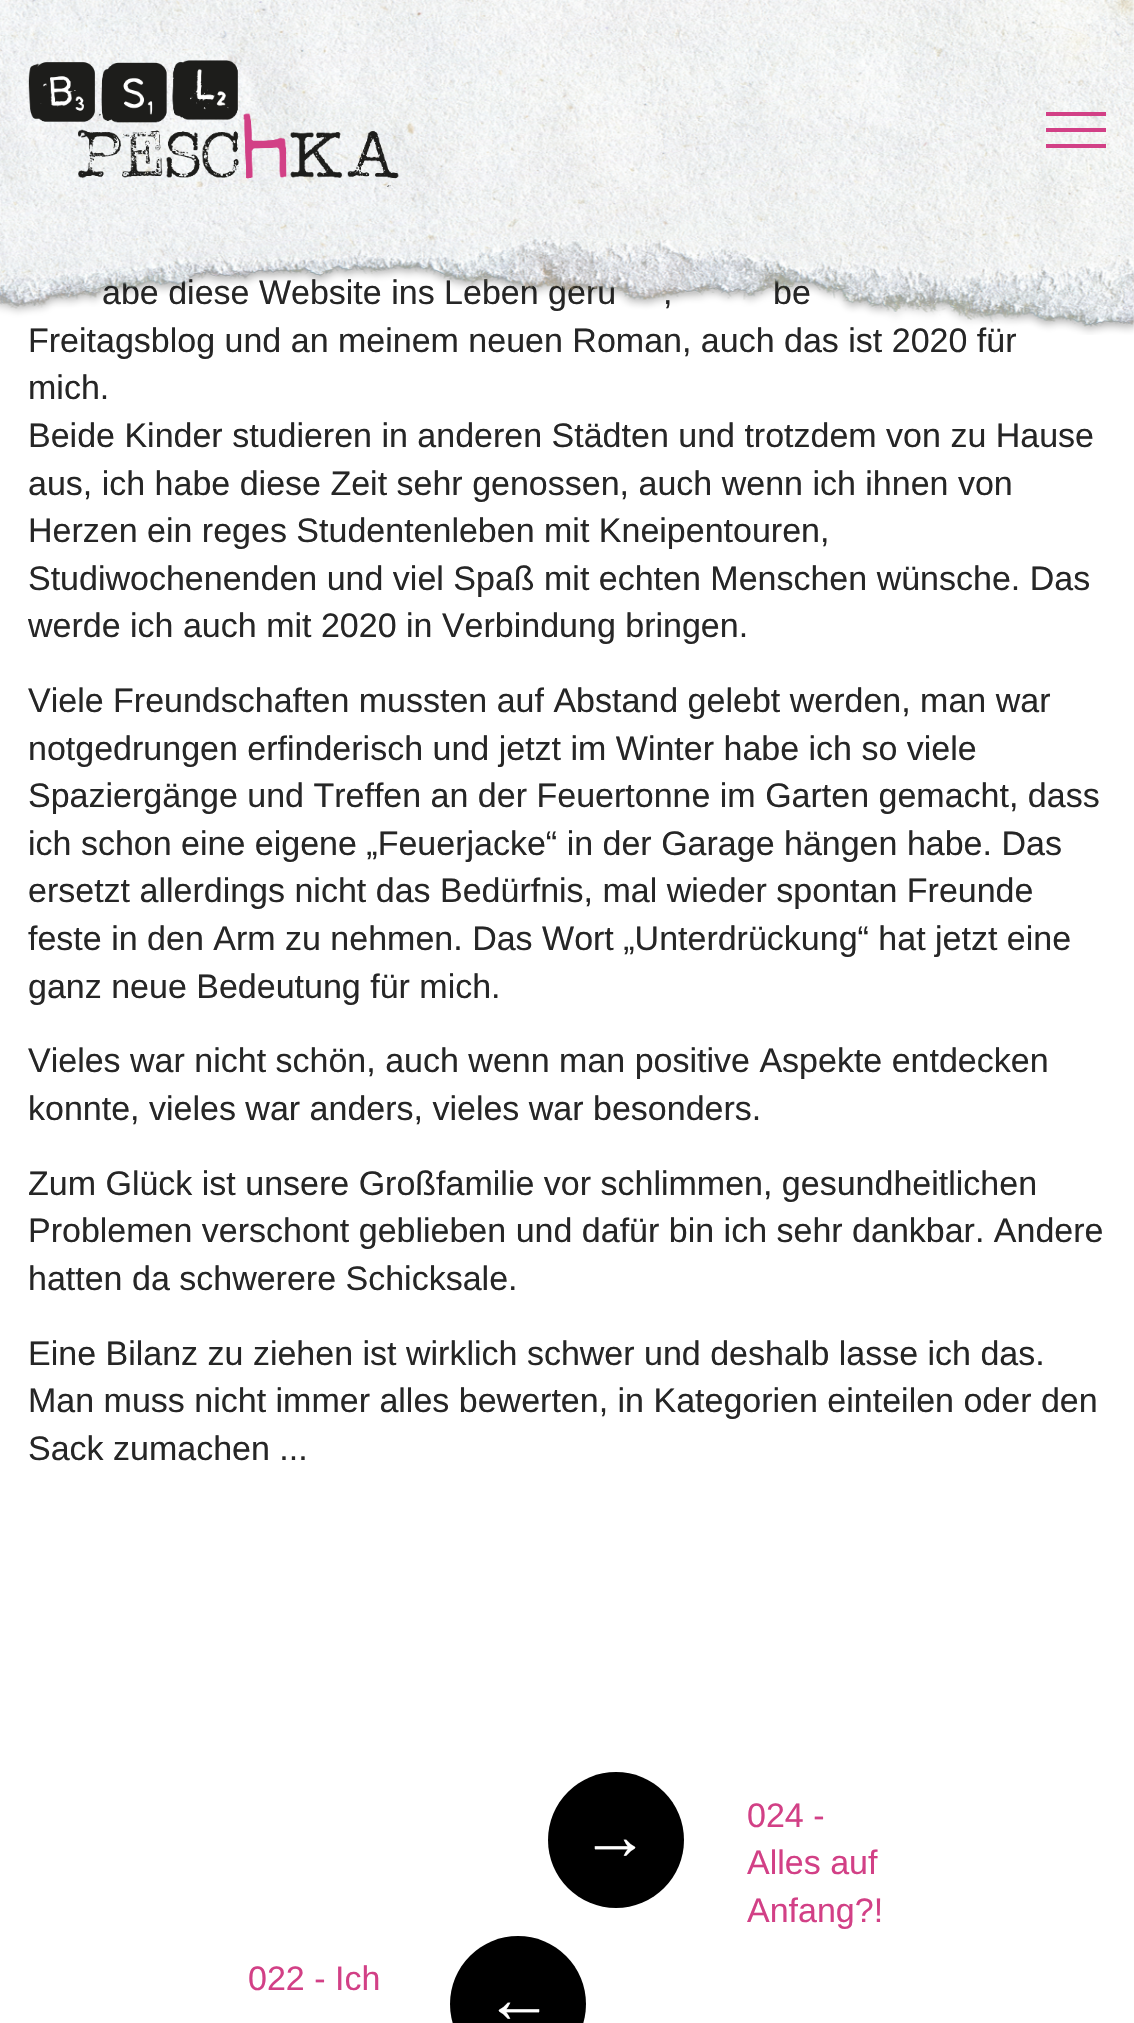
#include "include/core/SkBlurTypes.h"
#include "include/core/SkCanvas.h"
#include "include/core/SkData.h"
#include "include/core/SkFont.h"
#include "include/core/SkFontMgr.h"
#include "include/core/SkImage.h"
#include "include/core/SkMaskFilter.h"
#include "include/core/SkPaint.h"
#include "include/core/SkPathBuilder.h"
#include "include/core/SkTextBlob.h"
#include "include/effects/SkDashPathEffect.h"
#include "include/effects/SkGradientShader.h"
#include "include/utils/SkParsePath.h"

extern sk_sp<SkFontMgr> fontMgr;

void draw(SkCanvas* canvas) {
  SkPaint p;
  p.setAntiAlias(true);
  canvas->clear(SK_ColorWHITE);
  p.setColor(SK_ColorBLACK);
  canvas->drawCircle(616, 1840, 68, p);
  canvas->drawCircle(518, 2004, 68, p);
  SkFont font1(fontMgr->matchFamilyStyle("Liberation Sans", SkFontStyle::Normal()), 34);
  font1.setSubpixel(true);
  p.setColor(SkColorSetRGB(38, 38, 38));
  canvas->drawString("abe diese Website ins Leben geru", 102, 304, font1, p);
  canvas->drawString(",", 663, 304, font1, p);
  canvas->drawString("be", 773, 304, font1, p);
  canvas->drawString("Freitagsblog und an meinem neuen Roman, auch das ist 2020 für", 28, 352, font1, p);
  canvas->drawImageRect(SkImages::DeferredFromEncodedData(SkData::MakeFromFileName("images/1.png")), SkRect::MakeLTRB(0, 0, 1134, 335), SkSamplingOptions());
  canvas->drawImageRect(SkImages::DeferredFromEncodedData(SkData::MakeFromFileName("images/2.png")), SkRect::MakeLTRB(28, 60, 399, 189), SkSamplingOptions());
  p.setColor(SkColorSetRGB(210, 64, 134));
  canvas->drawRect(SkRect::MakeLTRB(1046, 144, 1106, 148), p);
  canvas->drawRect(SkRect::MakeLTRB(1046, 128, 1106, 132), p);
  canvas->drawRect(SkRect::MakeLTRB(1046, 112, 1106, 116), p);
  p.setColor(SkColorSetRGB(38, 38, 38));
  canvas->drawString("mich.", 28, 399, font1, p);
  canvas->drawString("Beide Kinder studieren in anderen Städten und trotzdem von zu Hause", 28, 447, font1, p);
  canvas->drawString("aus, ich habe diese Zeit sehr genossen, auch wenn ich ihnen von", 28, 495, font1, p);
  canvas->drawString("Herzen ein reges Studentenleben mit Kneipentouren,", 28, 542, font1, p);
  canvas->drawString("Studiwochenenden und viel Spaß mit echten Menschen wünsche. Das", 28, 590, font1, p);
  canvas->drawString("werde ich auch mit 2020 in Verbindung bringen.", 28, 637, font1, p);
  canvas->drawString("Viele Freundschaften mussten auf Abstand gelebt werden, man war", 28, 712, font1, p);
  canvas->drawString("notgedrungen erfinderisch und jetzt im Winter habe ich so viele", 28, 760, font1, p);
  canvas->drawString("Spaziergänge und Treffen an der Feuertonne im Garten gemacht, dass", 28, 807, font1, p);
  canvas->drawString("ich schon eine eigene „Feuerjacke“ in der Garage hängen habe. Das", 28, 855, font1, p);
  canvas->drawString("ersetzt allerdings nicht das Bedürfnis, mal wieder spontan Freunde", 28, 902, font1, p);
  canvas->drawString("feste in den Arm zu nehmen. Das Wort „Unterdrückung“ hat jetzt eine", 28, 950, font1, p);
  canvas->drawString("ganz neue Bedeutung für mich.", 28, 998, font1, p);
  canvas->drawString("Vieles war nicht schön, auch wenn man positive Aspekte entdecken", 28, 1072, font1, p);
  canvas->drawString("konnte, vieles war anders, vieles war besonders.", 28, 1120, font1, p);
  canvas->drawString("Zum Glück ist unsere Großfamilie vor schlimmen, gesundheitlichen", 28, 1195, font1, p);
  canvas->drawString("Problemen verschont geblieben und dafür bin ich sehr dankbar. Andere", 28, 1242, font1, p);
  canvas->drawString("hatten da schwerere Schicksale.", 28, 1290, font1, p);
  canvas->drawString("Eine Bilanz zu ziehen ist wirklich schwer und deshalb lasse ich das.", 28, 1365, font1, p);
  canvas->drawString("Man muss nicht immer alles bewerten, in Kategorien einteilen oder den", 28, 1412, font1, p);
  canvas->drawString("Sack zumachen ...", 28, 1460, font1, p);
  SkFont font2(fontMgr->matchFamilyStyle("Liberation Sans", SkFontStyle::Normal()), 68);
  font2.setSubpixel(true);
  p.setColor(SK_ColorWHITE);
  canvas->drawString("→", 581, 1859, font2, p);
  p.setColor(SkColorSetRGB(210, 64, 134));
  canvas->drawString("024 -", 747, 1827, font1, p);
  canvas->drawString("Alles auf", 747, 1874, font1, p);
  canvas->drawString("Anfang?!", 747, 1922, font1, p);
  canvas->drawString("022 - Ich", 248, 1990, font1, p);
  p.setColor(SK_ColorWHITE);
  canvas->drawString("←", 485, 2022, font2, p);
}
